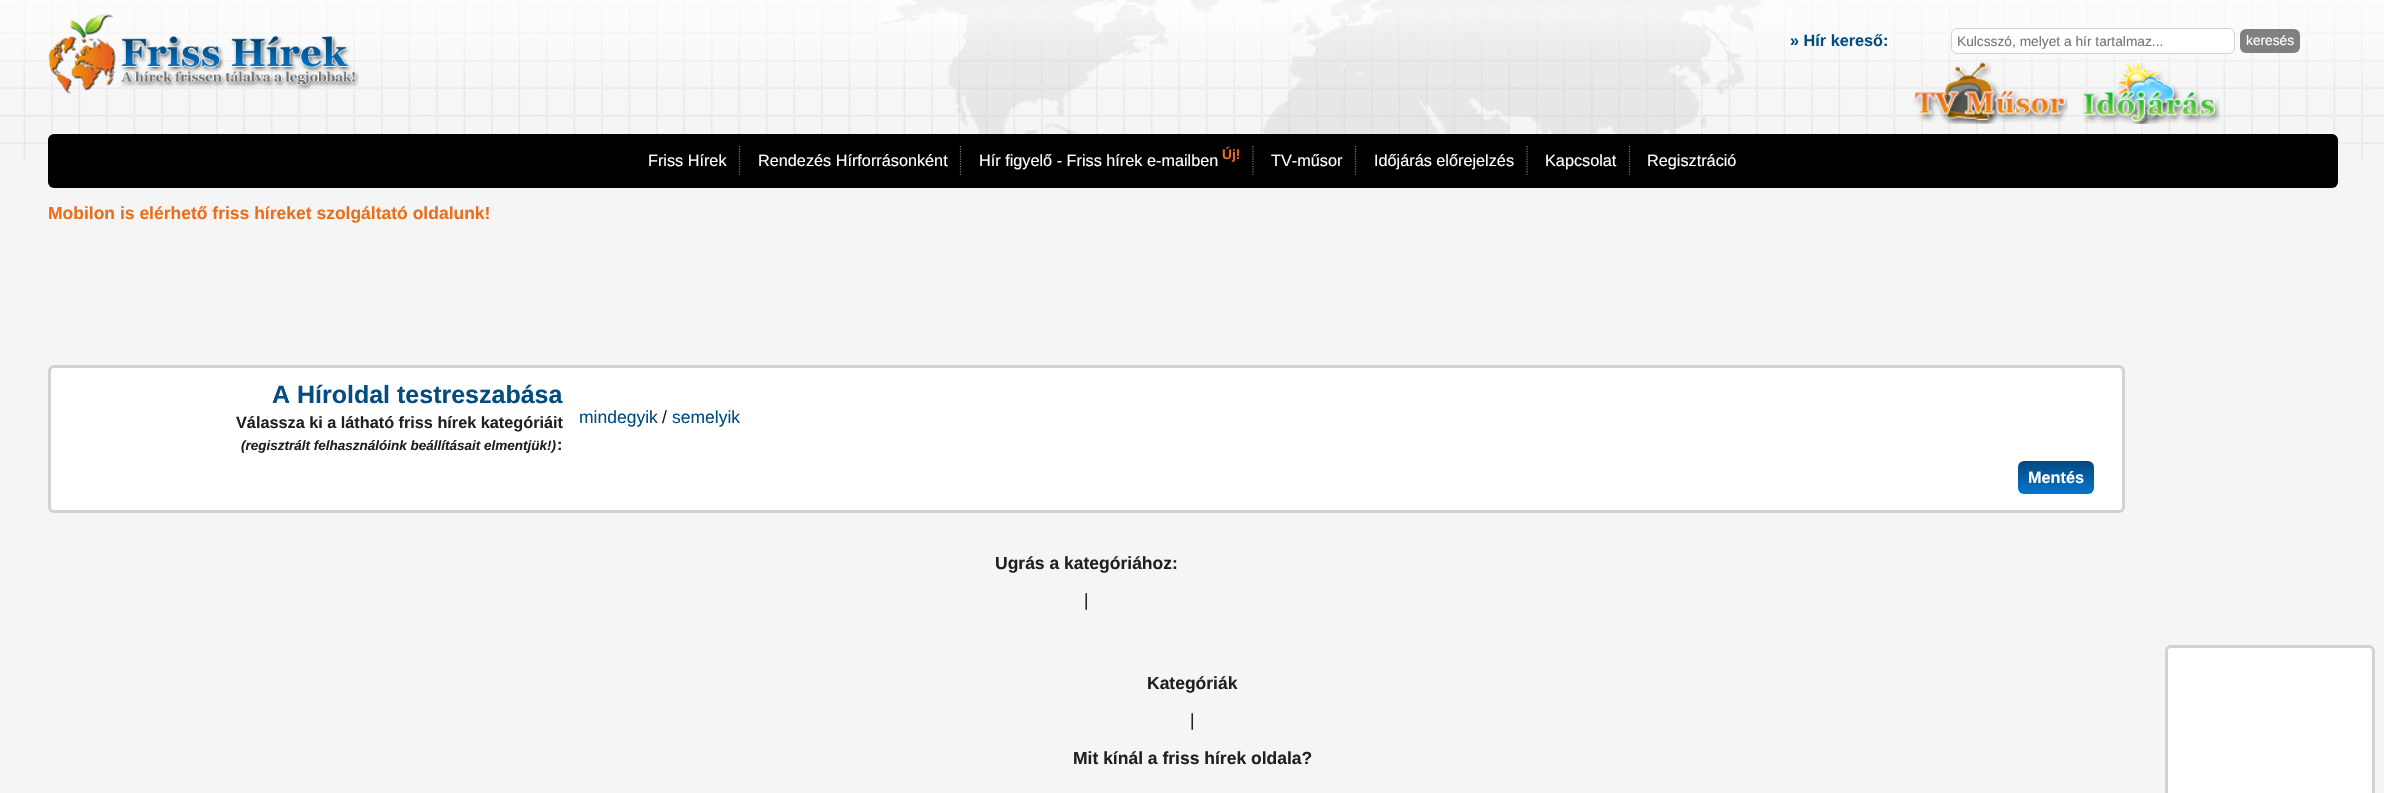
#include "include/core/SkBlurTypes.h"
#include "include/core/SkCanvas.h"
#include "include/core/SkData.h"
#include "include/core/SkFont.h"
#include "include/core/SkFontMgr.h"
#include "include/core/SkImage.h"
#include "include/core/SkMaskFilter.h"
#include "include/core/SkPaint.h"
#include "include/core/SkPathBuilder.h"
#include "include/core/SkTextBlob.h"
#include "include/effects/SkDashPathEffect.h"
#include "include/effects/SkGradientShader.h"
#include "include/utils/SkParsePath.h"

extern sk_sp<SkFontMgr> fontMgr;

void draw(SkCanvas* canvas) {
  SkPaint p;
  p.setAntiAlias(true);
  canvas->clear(SkColorSetRGB(245, 245, 245));
  canvas->drawImageRect(SkImages::DeferredFromEncodedData(SkData::MakeFromFileName("images/1.png")), SkRect::MakeLTRB(0, 0, 2384, 160), SkSamplingOptions());
  canvas->drawImageRect(SkImages::DeferredFromEncodedData(SkData::MakeFromFileName("images/2.png")), SkRect::MakeLTRB(48, 14, 359, 94), SkSamplingOptions());
  p.setColor(SK_ColorWHITE);
  canvas->drawRoundRect(SkRect::MakeLTRB(1951.5f, 28.5f, 2234.5f, 53.5f), 5.5f, 5.5f, p);
  p.setStyle(SkPaint::kStroke_Style);
  p.setStrokeWidth(1);
  p.setColor(SkColorSetRGB(209, 211, 211));
  canvas->drawRoundRect(SkRect::MakeLTRB(1951.5f, 28.5f, 2234.5f, 53.5f), 5.5f, 5.5f, p);
  p.setStyle(SkPaint::kFill_Style);
  p.setColor(SkColorSetRGB(128, 128, 128));
  canvas->drawRoundRect(SkRect::MakeLTRB(2240, 29, 2300, 53), 6, 6, p);
  canvas->drawImageRect(SkImages::DeferredFromEncodedData(SkData::MakeFromFileName("images/3.png")), SkRect::MakeLTRB(1913, 62, 2068, 124), SkSamplingOptions());
  canvas->drawImageRect(SkImages::DeferredFromEncodedData(SkData::MakeFromFileName("images/4.png")), SkRect::MakeLTRB(2082, 61, 2220, 124), SkSamplingOptions());
  p.setColor(SK_ColorBLACK);
  canvas->drawRoundRect(SkRect::MakeLTRB(48, 134, 2338, 188), 6, 6, p);
  p.setStyle(SkPaint::kStroke_Style);
  p.setStrokeWidth(1.2f);
  p.setColor(SkColorSetRGB(126, 120, 99));
  p.setPathEffect(SkDashPathEffect::Make({{1.25f, 1.25f}}, 0));
  canvas->drawPath(SkPathBuilder().moveTo(739.5f, 146).lineTo(739.5f, 175).detach(), p);
  p.setPathEffect(nullptr);
  p.setPathEffect(SkDashPathEffect::Make({{1.25f, 1.25f}}, 0));
  canvas->drawPath(SkPathBuilder().moveTo(960.5f, 146).lineTo(960.5f, 175).detach(), p);
  p.setPathEffect(nullptr);
  p.setPathEffect(SkDashPathEffect::Make({{1.25f, 1.25f}}, 0));
  canvas->drawPath(SkPathBuilder().moveTo(1253, 146).lineTo(1253, 175).detach(), p);
  p.setPathEffect(nullptr);
  p.setPathEffect(SkDashPathEffect::Make({{1.25f, 1.25f}}, 0));
  canvas->drawPath(SkPathBuilder().moveTo(1355.5f, 146).lineTo(1355.5f, 175).detach(), p);
  p.setPathEffect(nullptr);
  p.setPathEffect(SkDashPathEffect::Make({{1.25f, 1.25f}}, 0));
  canvas->drawPath(SkPathBuilder().moveTo(1527, 146).lineTo(1527, 175).detach(), p);
  p.setPathEffect(nullptr);
  p.setPathEffect(SkDashPathEffect::Make({{1.25f, 1.25f}}, 0));
  canvas->drawPath(SkPathBuilder().moveTo(1629.5f, 146).lineTo(1629.5f, 175).detach(), p);
  p.setPathEffect(nullptr);
  p.setStyle(SkPaint::kFill_Style);
  p.setColor(SK_ColorWHITE);
  canvas->drawRoundRect(SkRect::MakeLTRB(49.5f, 366.5f, 2123.5f, 511.5f), 4.5f, 4.5f, p);
  p.setStyle(SkPaint::kStroke_Style);
  p.setStrokeWidth(3);
  p.setColor(SkColorSetRGB(209, 211, 211));
  canvas->drawRoundRect(SkRect::MakeLTRB(49.5f, 366.5f, 2123.5f, 511.5f), 4.5f, 4.5f, p);
  p.setStyle(SkPaint::kFill_Style);
  {
    const SkColor colors[] = {SkColorSetRGB(3, 72, 128), SkColorSetRGB(4, 117, 207)};
    const float stops[] = {0, 1};
    const SkPoint ends[] = {{2056, 461}, {2056, 494}};
    p.setShader(SkGradientShader::MakeLinear(ends, colors, stops, 2, SkTileMode::kClamp));
    p.setAlpha(255);
  }
  canvas->drawRoundRect(SkRect::MakeLTRB(2018, 461, 2094, 494), 6, 6, p);
  p.setShader(nullptr);
  p.setColor(SK_ColorWHITE);
  canvas->drawRoundRect(SkRect::MakeLTRB(2166.5f, 646.5f, 2373.5f, 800.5f), 4.5f, 4.5f, p);
  p.setStyle(SkPaint::kStroke_Style);
  p.setColor(SkColorSetRGB(209, 211, 211));
  canvas->drawRoundRect(SkRect::MakeLTRB(2166.5f, 646.5f, 2373.5f, 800.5f), 4.5f, 4.5f, p);
  SkFont font1(fontMgr->matchFamilyStyle("Liberation Sans", SkFontStyle::Bold()), 16.25f);
  font1.setSubpixel(true);
  p.setStyle(SkPaint::kFill_Style);
  p.setColor(SkColorSetRGB(3, 77, 128));
  canvas->drawString("» Hír kereső:", 1790, 46, font1, p);
  SkFont font2(fontMgr->matchFamilyStyle("Liberation Sans", SkFontStyle::Normal()), 13.75f);
  font2.setSubpixel(true);
  p.setColor(SkColorSetRGB(117, 117, 117));
  canvas->drawString("Kulcsszó, melyet a hír tartalmaz...", 1957, 46, font2, p);
  p.setColor(SK_ColorWHITE);
  canvas->drawString("keresés", 2246, 45, font2, p);
  SkFont font3(fontMgr->matchFamilyStyle("Liberation Sans", SkFontStyle::Normal()), 16.25f);
  font3.setSubpixel(true);
  canvas->drawString("Friss Hírek", 648, 166, font3, p);
  canvas->drawString("Rendezés Hírforrásonként", 758, 166, font3, p);
  canvas->drawString("Hír figyelő - Friss hírek e-mailben", 979, 166, font3, p);
  SkFont font4(fontMgr->matchFamilyStyle("Liberation Sans", SkFontStyle::Bold()), 13.75f);
  font4.setSubpixel(true);
  p.setColor(SkColorSetRGB(233, 111, 27));
  canvas->drawString("Új!", 1222, 159, font4, p);
  p.setColor(SK_ColorWHITE);
  canvas->drawString("TV-műsor", 1271, 166, font3, p);
  canvas->drawString("Időjárás előrejelzés", 1374, 166, font3, p);
  canvas->drawString("Kapcsolat", 1545, 166, font3, p);
  canvas->drawString("Regisztráció", 1647, 166, font3, p);
  SkFont font5(fontMgr->matchFamilyStyle("Liberation Sans", SkFontStyle::Bold()), 17.5f);
  font5.setSubpixel(true);
  p.setColor(SkColorSetRGB(233, 111, 27));
  canvas->drawString("Mobilon is elérhető friss híreket szolgáltató oldalunk!", 48, 219, font5, p);
  SkFont font6(fontMgr->matchFamilyStyle("Liberation Sans", SkFontStyle::Bold()), 25);
  font6.setSubpixel(true);
  p.setColor(SkColorSetRGB(3, 77, 128));
  canvas->drawString("A Híroldal testreszabása", 272, 403, font6, p);
  p.setColor(SkColorSetRGB(32, 32, 32));
  canvas->drawString("Válassza ki a látható friss hírek kategóriáit", 236, 428, font1, p);
  SkFont font7(fontMgr->matchFamilyStyle("Liberation Sans", SkFontStyle::BoldItalic()), 13.5f);
  font7.setSubpixel(true);
  canvas->drawString("(regisztrált felhasználóink beállításait elmentjük!)", 241, 450, font7, p);
  canvas->drawString(":", 557, 450, font1, p);
  SkFont font8(fontMgr->matchFamilyStyle("Liberation Sans", SkFontStyle::Normal()), 17.5f);
  font8.setSubpixel(true);
  p.setColor(SkColorSetRGB(3, 77, 128));
  canvas->drawString("mindegyik", 579, 423, font8, p);
  p.setColor(SkColorSetRGB(32, 32, 32));
  canvas->drawString("/", 662, 423, font8, p);
  p.setColor(SkColorSetRGB(3, 77, 128));
  canvas->drawString("semelyik", 672, 423, font8, p);
  p.setColor(SK_ColorWHITE);
  canvas->drawString("Mentés", 2028, 483, font1, p);
  p.setColor(SkColorSetRGB(32, 32, 32));
  canvas->drawString("Ugrás a kategóriához:", 995, 569, font5, p);
  canvas->drawString("|", 1084, 606, font8, p);
  canvas->drawString("Kategóriák", 1147, 689, font5, p);
  canvas->drawString("|", 1190, 726, font8, p);
  canvas->drawString("Mit kínál a friss hírek oldala?", 1073, 764, font5, p);
}
